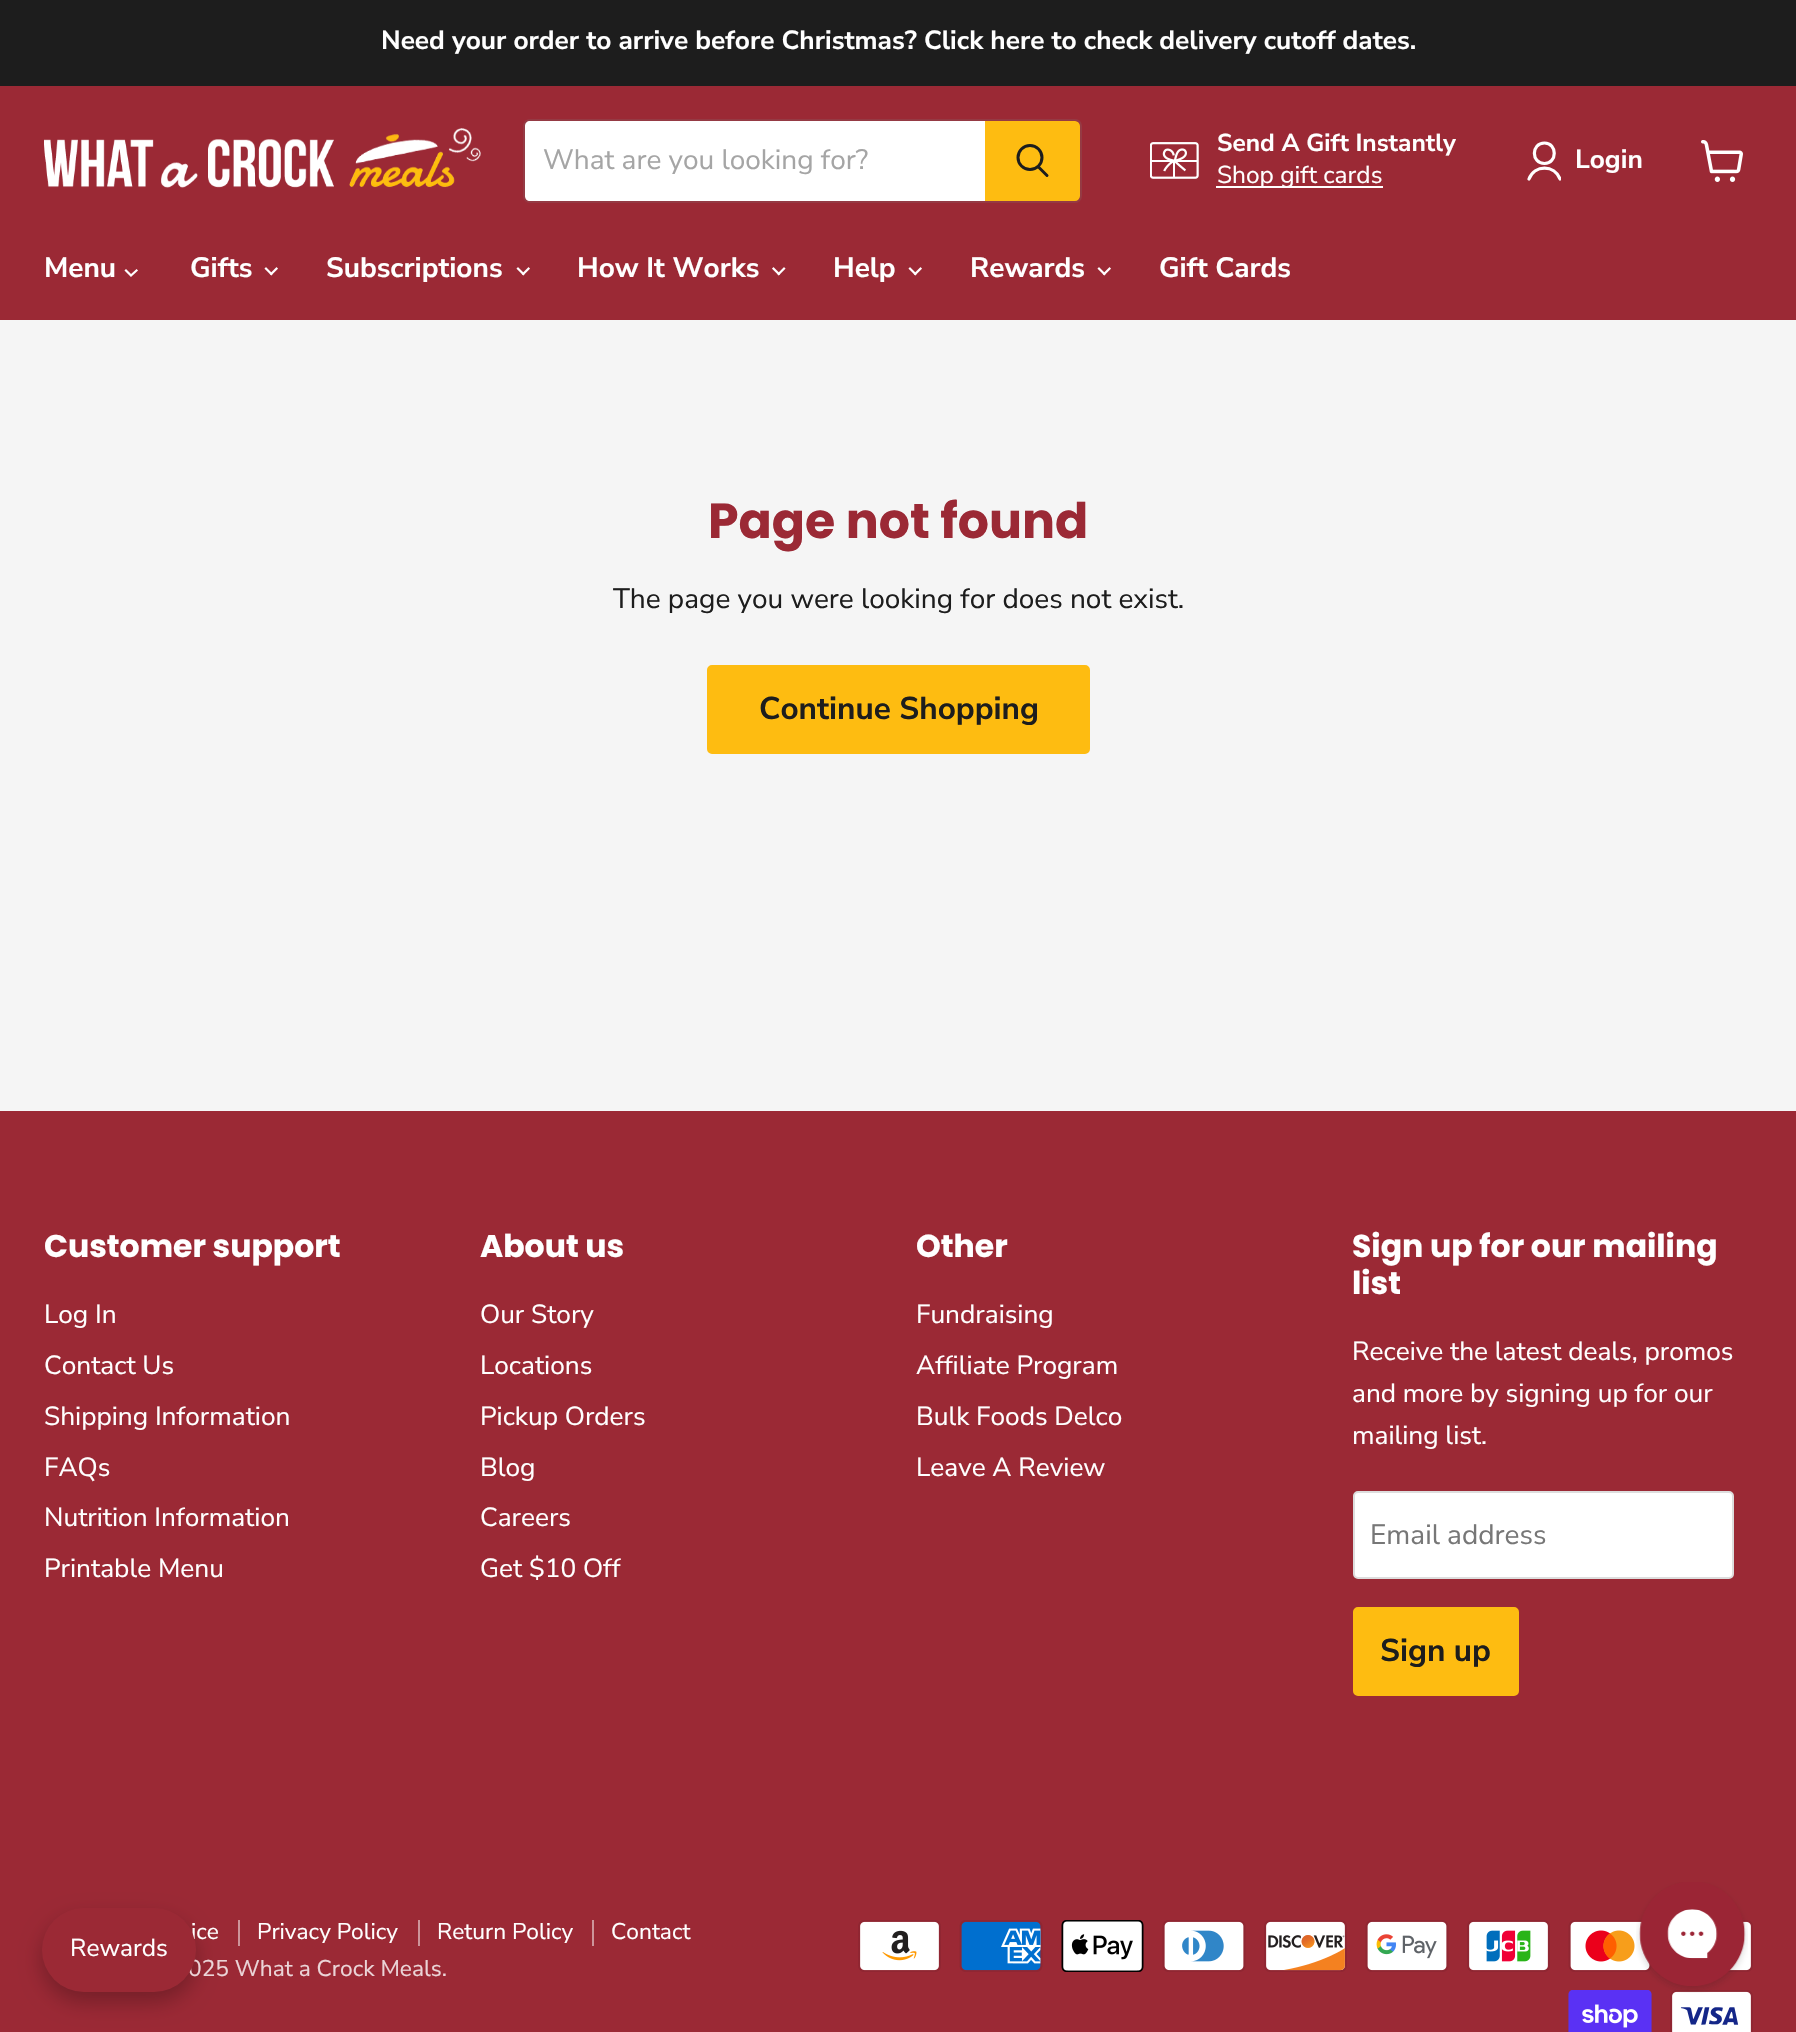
#include "include/core/SkBlurTypes.h"
#include "include/core/SkCanvas.h"
#include "include/core/SkData.h"
#include "include/core/SkFont.h"
#include "include/core/SkFontMgr.h"
#include "include/core/SkImage.h"
#include "include/core/SkMaskFilter.h"
#include "include/core/SkPaint.h"
#include "include/core/SkPathBuilder.h"
#include "include/core/SkTextBlob.h"
#include "include/effects/SkDashPathEffect.h"
#include "include/effects/SkGradientShader.h"
#include "include/utils/SkParsePath.h"

extern sk_sp<SkFontMgr> fontMgr;

void draw(SkCanvas* canvas) {
  SkPaint p;
  p.setAntiAlias(true);
  canvas->clear(SkColorSetRGB(245, 245, 245));
  p.setColor(SkColorSetRGB(29, 29, 29));
  canvas->drawRect(SkRect::MakeLTRB(0, 0, 1796, 86), p);
  p.setColor(SkColorSetRGB(155, 41, 53));
  canvas->drawRect(SkRect::MakeLTRB(0, 86, 1796, 320), p);
  canvas->drawImageRect(SkImages::DeferredFromEncodedData(SkData::MakeFromFileName("images/1.png")), SkRect::MakeLTRB(44, 128, 481, 188), SkSamplingOptions());
  p.setStyle(SkPaint::kStroke_Style);
  p.setStrokeWidth(2);
  p.setColor(SkColorSetARGB(51, 123, 123, 123));
  canvas->drawRoundRect(SkRect::MakeLTRB(524, 120, 1081, 202), 6, 6, p);
  p.setStyle(SkPaint::kFill_Style);
  p.setColor(SK_ColorWHITE);
  canvas->drawPath(SkPathBuilder().moveTo(530, 121).lineTo(985, 121).lineTo(985, 201).lineTo(530, 201).cubicTo(527, 201, 525, 199, 525, 196).lineTo(525, 126).cubicTo(525, 123, 527, 121, 530, 121).close().detach(), p);
  p.setColor(SkColorSetRGB(254, 188, 17));
  canvas->drawPath(SkPathBuilder().moveTo(986, 122).lineTo(1075, 122).cubicTo(1077, 122, 1079, 124, 1079, 126).lineTo(1079, 196).cubicTo(1079, 198, 1077, 200, 1075, 200).lineTo(986, 200).close().detach(), p);
  p.setStyle(SkPaint::kStroke_Style);
  canvas->drawPath(SkPathBuilder().moveTo(986, 122).lineTo(1075, 122).cubicTo(1077, 122, 1079, 124, 1079, 126).lineTo(1079, 196).cubicTo(1079, 198, 1077, 200, 1075, 200).lineTo(986, 200).close().detach(), p);
  p.setStrokeWidth(3);
  p.setStrokeCap(SkPaint::kRound_Cap);
  p.setColor(SkColorSetRGB(29, 29, 29));
  canvas->drawPath(SkPathBuilder().moveTo(1047, 175.5f).lineTo(1038.5f, 167).detach(), p);
  p.setStrokeCap(SkPaint::kButt_Cap);
  canvas->drawCircle(1030, 157.5f, 12, p);
  canvas->drawImageRect(SkImages::DeferredFromEncodedData(SkData::MakeFromFileName("images/2.png")), SkRect::MakeLTRB(1150, 142, 1199, 179), SkSamplingOptions());
  p.setStyle(SkPaint::kFill_Style);
  p.setColor(SK_ColorWHITE);
  canvas->drawRect(SkRect::MakeLTRB(1216, 186, 1383, 188), p);
  p.setStyle(SkPaint::kStroke_Style);
  p.setStrokeWidth(3.2f);
  p.setStrokeCap(SkPaint::kRound_Cap);
  p.setStrokeJoin(SkPaint::kRound_Join);
  canvas->drawPath(SkPathBuilder().moveTo(1544.5f, 163.5f).cubicTo(1557.5f, 163.5f, 1557.5f, 143, 1544.5f, 143).cubicTo(1531, 143, 1531, 163.5f, 1544.5f, 163.5f).close().detach(), p);
  canvas->save();
  canvas->clipRect(SkRect::MakeLTRB(1526, 140, 1561, 182));
  canvas->drawPath(SkPathBuilder().moveTo(1560, 179).cubicTo(1554.5f, 164.5f, 1534.5f, 164.5f, 1529, 179).detach(), p);
  canvas->restore();
  canvas->drawImageRect(SkImages::DeferredFromEncodedData(SkData::MakeFromFileName("images/3.png")), SkRect::MakeLTRB(1701, 140, 1743, 182), SkSamplingOptions());
  p.setStrokeWidth(2.2f);
  p.setStrokeCap(SkPaint::kSquare_Cap);
  p.setStrokeJoin(SkPaint::kMiter_Join);
  canvas->drawPath(SkPathBuilder().moveTo(131, 275.5f).lineTo(136.5f, 270.5f).moveTo(131, 275.5f).lineTo(126, 270.5f).detach(), p);
  canvas->drawImageRect(SkImages::DeferredFromEncodedData(SkData::MakeFromFileName("images/4.png")), SkRect::MakeLTRB(264, 267, 278, 276), SkSamplingOptions());
  canvas->drawImageRect(SkImages::DeferredFromEncodedData(SkData::MakeFromFileName("images/4.png")), SkRect::MakeLTRB(516, 267, 530, 276), SkSamplingOptions());
  canvas->drawImageRect(SkImages::DeferredFromEncodedData(SkData::MakeFromFileName("images/5.png")), SkRect::MakeLTRB(772, 267, 786, 276), SkSamplingOptions());
  canvas->drawImageRect(SkImages::DeferredFromEncodedData(SkData::MakeFromFileName("images/4.png")), SkRect::MakeLTRB(908, 267, 922, 276), SkSamplingOptions());
  canvas->drawImageRect(SkImages::DeferredFromEncodedData(SkData::MakeFromFileName("images/4.png")), SkRect::MakeLTRB(1097, 267, 1111, 276), SkSamplingOptions());
  p.setStyle(SkPaint::kFill_Style);
  p.setColor(SkColorSetRGB(254, 188, 17));
  canvas->drawRoundRect(SkRect::MakeLTRB(708, 666, 1089, 753), 4, 4, p);
  p.setStyle(SkPaint::kStroke_Style);
  p.setStrokeWidth(2);
  p.setStrokeCap(SkPaint::kButt_Cap);
  canvas->drawRoundRect(SkRect::MakeLTRB(708, 666, 1089, 753), 4, 4, p);
  p.setStyle(SkPaint::kFill_Style);
  p.setColor(SkColorSetRGB(155, 41, 53));
  canvas->drawRect(SkRect::MakeLTRB(0, 1111, 1796, 2032), p);
  p.setColor(SK_ColorWHITE);
  canvas->drawRoundRect(SkRect::MakeLTRB(1354, 1492, 1733, 1578), 4, 4, p);
  p.setStyle(SkPaint::kStroke_Style);
  p.setColor(SkColorSetRGB(221, 221, 221));
  canvas->drawRoundRect(SkRect::MakeLTRB(1354, 1492, 1733, 1578), 4, 4, p);
  p.setStyle(SkPaint::kFill_Style);
  p.setColor(SkColorSetRGB(254, 188, 17));
  canvas->drawRoundRect(SkRect::MakeLTRB(1354, 1608, 1518, 1695), 4, 4, p);
  p.setStyle(SkPaint::kStroke_Style);
  canvas->drawRoundRect(SkRect::MakeLTRB(1354, 1608, 1518, 1695), 4, 4, p);
  p.setStyle(SkPaint::kFill_Style);
  p.setColor(SkColorSetRGB(205, 148, 154));
  canvas->drawRect(SkRect::MakeLTRB(238, 1920, 240, 1946), p);
  canvas->drawRect(SkRect::MakeLTRB(418, 1920, 420, 1946), p);
  canvas->drawRect(SkRect::MakeLTRB(592, 1920, 594, 1946), p);
  canvas->drawImageRect(SkImages::DeferredFromEncodedData(SkData::MakeFromFileName("images/6.png")), SkRect::MakeLTRB(858, 1920, 941, 1972), SkSamplingOptions());
  canvas->drawImageRect(SkImages::DeferredFromEncodedData(SkData::MakeFromFileName("images/7.png")), SkRect::MakeLTRB(959, 1920, 1043, 1972), SkSamplingOptions());
  canvas->drawImageRect(SkImages::DeferredFromEncodedData(SkData::MakeFromFileName("images/8.png")), SkRect::MakeLTRB(1061, 1920, 1144, 1972), SkSamplingOptions());
  canvas->drawImageRect(SkImages::DeferredFromEncodedData(SkData::MakeFromFileName("images/9.png")), SkRect::MakeLTRB(1162, 1920, 1246, 1972), SkSamplingOptions());
  canvas->drawImageRect(SkImages::DeferredFromEncodedData(SkData::MakeFromFileName("images/10.png")), SkRect::MakeLTRB(1264, 1920, 1347, 1972), SkSamplingOptions());
  canvas->drawImageRect(SkImages::DeferredFromEncodedData(SkData::MakeFromFileName("images/11.png")), SkRect::MakeLTRB(1365, 1920, 1449, 1972), SkSamplingOptions());
  canvas->drawImageRect(SkImages::DeferredFromEncodedData(SkData::MakeFromFileName("images/12.png")), SkRect::MakeLTRB(1467, 1920, 1550, 1972), SkSamplingOptions());
  canvas->drawImageRect(SkImages::DeferredFromEncodedData(SkData::MakeFromFileName("images/13.png")), SkRect::MakeLTRB(1568, 1920, 1652, 1972), SkSamplingOptions());
  canvas->drawImageRect(SkImages::DeferredFromEncodedData(SkData::MakeFromFileName("images/14.png")), SkRect::MakeLTRB(1727, 1920, 1753, 1972), SkSamplingOptions());
  canvas->drawImageRect(SkImages::DeferredFromEncodedData(SkData::MakeFromFileName("images/15.png")), SkRect::MakeLTRB(1568, 1990, 1652, 2032), SkSamplingOptions());
  canvas->drawImageRect(SkImages::DeferredFromEncodedData(SkData::MakeFromFileName("images/16.png")), SkRect::MakeLTRB(1670, 1990, 1753, 2032), SkSamplingOptions());
  p.setColor(SkColorSetARGB(64, 0, 0, 0));
  p.setMaskFilter(SkMaskFilter::MakeBlur(kNormal_SkBlurStyle, 10.5f));
  canvas->drawRoundRect(SkRect::MakeLTRB(42, 1918, 196, 2002), 42, 42, p);
  p.setMaskFilter(nullptr);
  canvas->drawImageRect(SkImages::DeferredFromEncodedData(SkData::MakeFromFileName("images/17.png")), SkRect::MakeLTRB(1636, 1882, 1748, 1993), SkSamplingOptions());
  SkFont font1(fontMgr->matchFamilyStyle("Nunito Sans", SkFontStyle::Bold()), 26.25f);
  font1.setSubpixel(true);
  p.setColor(SK_ColorWHITE);
  canvas->drawString("Need your order to arrive before Christmas? Click here to check delivery cutoff dates.", 381, 49, font1, p);
  SkFont font2(fontMgr->matchFamilyStyle("Nunito Sans", SkFontStyle(200, SkFontStyle::kNormal_Width, SkFontStyle::kUpright_Slant)), 28);
  font2.setSubpixel(true);
  p.setColor(SkColorSetRGB(165, 165, 165));
  canvas->drawString("What are you looking for?", 543, 169, font2, p);
  SkFont font3(fontMgr->matchFamilyStyle("Nunito Sans", SkFontStyle::Bold()), 24.5f);
  font3.setSubpixel(true);
  p.setColor(SK_ColorWHITE);
  canvas->drawString("Send A Gift Instantly", 1217, 151, font3, p);
  SkFont font4(fontMgr->matchFamilyStyle("Nunito Sans", SkFontStyle(200, SkFontStyle::kNormal_Width, SkFontStyle::kUpright_Slant)), 24.5f);
  font4.setSubpixel(true);
  canvas->drawString("Shop gift cards", 1217, 183, font4, p);
  canvas->drawString("Login", 1575, 168, font1, p);
  SkFont font5(fontMgr->matchFamilyStyle("Nunito Sans", SkFontStyle::Bold()), 28);
  font5.setSubpixel(true);
  canvas->drawString("Menu", 44, 277, font5, p);
  canvas->drawString("Gifts", 190, 277, font5, p);
  canvas->drawString("Subscriptions", 326, 277, font5, p);
  canvas->drawString("How It Works", 577, 277, font5, p);
  canvas->drawString("Help", 833, 277, font5, p);
  canvas->drawString("Rewards", 970, 277, font5, p);
  canvas->drawString("Gift Cards", 1159, 277, font5, p);
  SkFont font6(fontMgr->matchFamilyStyle("Poppins", SkFontStyle::Bold()), 49);
  font6.setSubpixel(true);
  p.setColor(SkColorSetRGB(155, 41, 53));
  canvas->drawString("Page not found", 708, 538, font6, p);
  p.setColor(SkColorSetRGB(29, 29, 29));
  canvas->drawString("The page you were looking for does not exist.", 613, 608, font2, p);
  SkFont font7(fontMgr->matchFamilyStyle("Nunito Sans", SkFontStyle::Bold()), 31.5f);
  font7.setSubpixel(true);
  canvas->drawString("Continue Shopping", 759, 719, font7, p);
  SkFont font8(fontMgr->matchFamilyStyle("Poppins", SkFontStyle::Bold()), 31.5f);
  font8.setSubpixel(true);
  p.setColor(SK_ColorWHITE);
  canvas->drawString("Customer support", 44, 1257, font8, p);
  SkFont font9(fontMgr->matchFamilyStyle("Nunito Sans", SkFontStyle(200, SkFontStyle::kNormal_Width, SkFontStyle::kUpright_Slant)), 26.25f);
  font9.setSubpixel(true);
  canvas->drawString("Log In", 44, 1323, font9, p);
  canvas->drawString("Contact Us", 44, 1374, font9, p);
  canvas->drawString("Shipping Information", 44, 1425, font9, p);
  canvas->drawString("FAQs", 44, 1476, font9, p);
  canvas->drawString("Nutrition Information", 44, 1526, font9, p);
  canvas->drawString("Printable Menu", 44, 1577, font9, p);
  canvas->drawString("About us", 480, 1257, font8, p);
  canvas->drawString("Our Story", 480, 1323, font9, p);
  canvas->drawString("Locations", 480, 1374, font9, p);
  canvas->drawString("Pickup Orders", 480, 1425, font9, p);
  canvas->drawString("Blog", 480, 1476, font9, p);
  canvas->drawString("Careers", 480, 1526, font9, p);
  canvas->drawString("Get $10 Off", 480, 1577, font9, p);
  canvas->drawString("Other", 916, 1257, font8, p);
  canvas->drawString("Fundraising", 916, 1323, font9, p);
  canvas->drawString("Affiliate Program", 916, 1374, font9, p);
  canvas->drawString("Bulk Foods Delco", 916, 1425, font9, p);
  canvas->drawString("Leave A Review", 916, 1476, font9, p);
  canvas->drawString("Sign up for our mailing", 1352, 1257, font8, p);
  canvas->drawString("list", 1352, 1294, font8, p);
  canvas->drawString("Receive the latest deals, promos", 1352, 1360, font9, p);
  canvas->drawString("and more by signing up for our", 1352, 1402, font9, p);
  canvas->drawString("mailing list.", 1352, 1444, font9, p);
  p.setColor(SkColorSetRGB(119, 119, 119));
  canvas->drawString("Email address", 1370, 1544, font2, p);
  p.setColor(SkColorSetRGB(29, 29, 29));
  canvas->drawString("Sign up", 1380, 1661, font7, p);
  SkFont font10(fontMgr->matchFamilyStyle("Nunito Sans", SkFontStyle(200, SkFontStyle::kNormal_Width, SkFontStyle::kUpright_Slant)), 22.75f);
  font10.setSubpixel(true);
  p.setColor(SK_ColorWHITE);
  canvas->drawString("ice", 191, 1939, font10, p);
  canvas->drawString("Privacy Policy", 257, 1939, font10, p);
  canvas->drawString("Return Policy", 437, 1939, font10, p);
  canvas->drawString("Contact", 611, 1939, font10, p);
  p.setColor(SkColorSetRGB(235, 212, 215));
  canvas->drawString("025 What a Crock Meals.", 188, 1976, font10, p);
  p.setColor(SkColorSetRGB(155, 41, 53));
  canvas->drawRoundRect(SkRect::MakeLTRB(42, 1908, 196, 1992), 42, 42, p);
  p.setColor(SK_ColorWHITE);
  canvas->drawString("Rewards", 70, 1956, font4, p);
}
